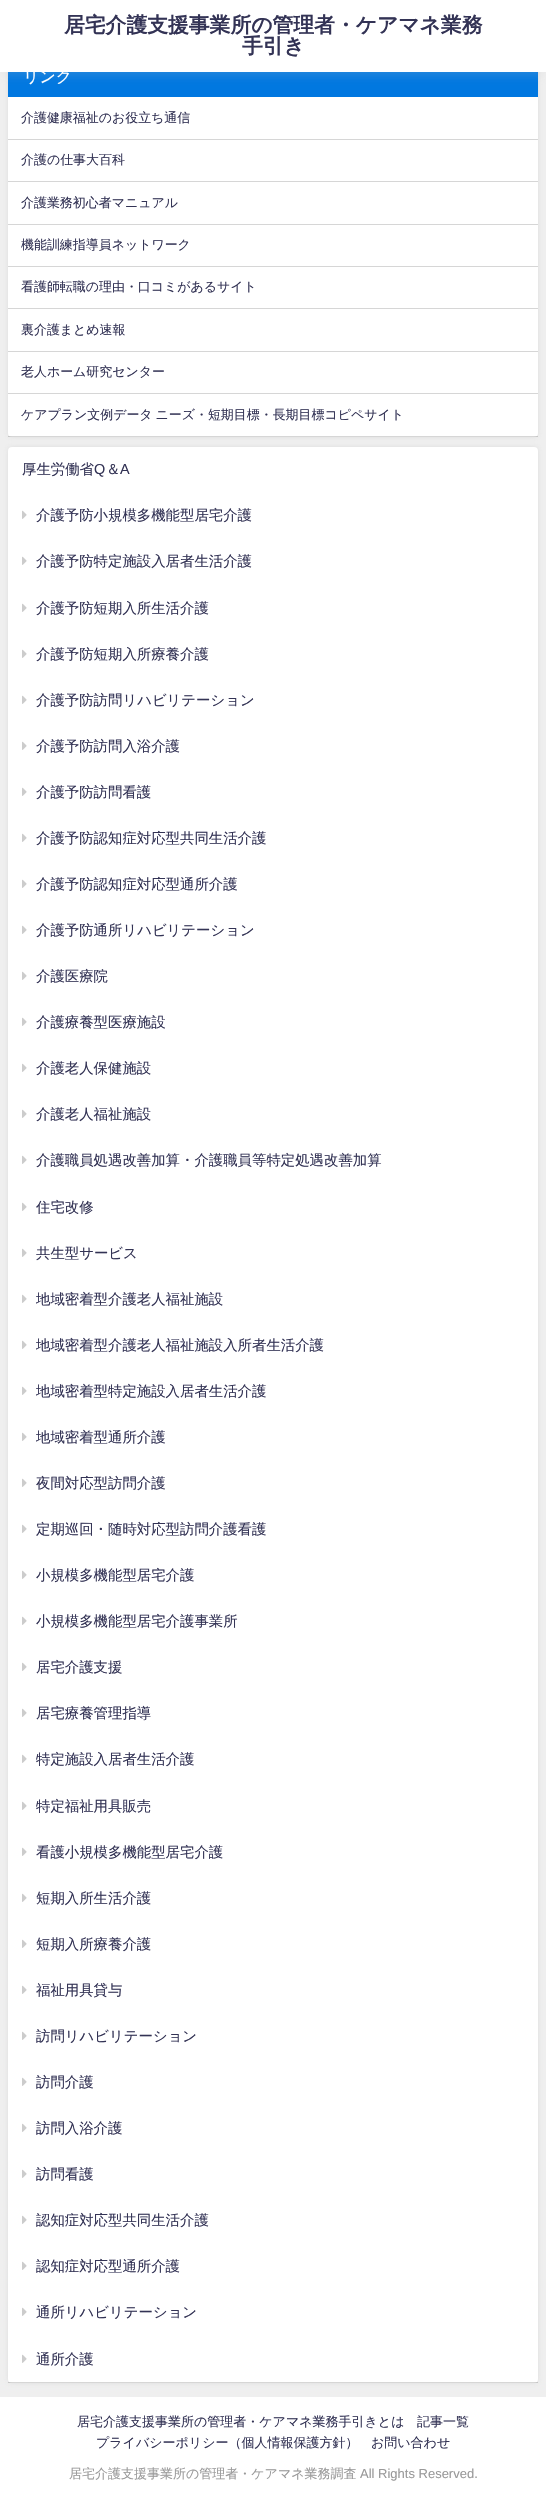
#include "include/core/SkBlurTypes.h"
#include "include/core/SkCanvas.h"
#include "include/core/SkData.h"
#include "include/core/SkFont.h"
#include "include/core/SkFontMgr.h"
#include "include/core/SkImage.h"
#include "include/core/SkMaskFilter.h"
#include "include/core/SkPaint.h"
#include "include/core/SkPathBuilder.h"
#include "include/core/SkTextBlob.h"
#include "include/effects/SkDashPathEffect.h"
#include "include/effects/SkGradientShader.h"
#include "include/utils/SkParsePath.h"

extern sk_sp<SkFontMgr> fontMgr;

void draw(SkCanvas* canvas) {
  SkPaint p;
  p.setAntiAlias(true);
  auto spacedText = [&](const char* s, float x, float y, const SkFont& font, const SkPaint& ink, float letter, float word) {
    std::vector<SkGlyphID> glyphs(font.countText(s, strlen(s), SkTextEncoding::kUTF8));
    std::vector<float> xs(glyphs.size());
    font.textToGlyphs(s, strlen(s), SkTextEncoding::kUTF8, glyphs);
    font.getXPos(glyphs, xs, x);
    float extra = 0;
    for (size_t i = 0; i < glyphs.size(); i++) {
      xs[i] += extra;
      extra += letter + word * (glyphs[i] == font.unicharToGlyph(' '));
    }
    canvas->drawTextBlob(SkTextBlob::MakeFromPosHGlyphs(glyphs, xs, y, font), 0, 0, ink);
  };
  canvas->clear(SkColorSetRGB(239, 239, 239));
  p.setColor(SkColorSetARGB(51, 150, 150, 150));
  p.setMaskFilter(SkMaskFilter::MakeBlur(kNormal_SkBlurStyle, 2.5f));
  canvas->drawRoundRect(SkRect::MakeLTRB(8, 56, 538, 437), 4, 4, p);
  p.setMaskFilter(nullptr);
  p.setColor(SK_ColorWHITE);
  canvas->drawRoundRect(SkRect::MakeLTRB(8, 56, 538, 437), 4, 4, p);
  p.setColor(SkColorSetRGB(0, 119, 224));
  canvas->drawRect(SkRect::MakeLTRB(8, 72, 538, 97), p);
  p.setColor(SkColorSetARGB(51, 200, 200, 200));
  p.setMaskFilter(SkMaskFilter::MakeBlur(kNormal_SkBlurStyle, 5));
  canvas->drawRect(SkRect::MakeLTRB(0, 3, 546, 75), p);
  p.setMaskFilter(nullptr);
  p.setColor(SK_ColorWHITE);
  canvas->drawRect(SkRect::MakeLTRB(0, 0, 546, 72), p);
  p.setColor(SkColorSetRGB(214, 214, 214));
  canvas->drawRect(SkRect::MakeLTRB(8, 139, 538, 140), p);
  canvas->drawRect(SkRect::MakeLTRB(8, 181, 538, 182), p);
  canvas->drawRect(SkRect::MakeLTRB(8, 224, 538, 225), p);
  canvas->drawRect(SkRect::MakeLTRB(8, 266, 538, 267), p);
  canvas->drawRect(SkRect::MakeLTRB(8, 308, 538, 309), p);
  canvas->drawRect(SkRect::MakeLTRB(8, 351, 538, 352), p);
  canvas->drawRect(SkRect::MakeLTRB(8, 393, 538, 394), p);
  p.setColor(SkColorSetARGB(51, 50, 50, 50));
  canvas->drawRect(SkRect::MakeLTRB(8, 436, 538, 437), p);
  p.setColor(SkColorSetARGB(51, 150, 150, 150));
  p.setMaskFilter(SkMaskFilter::MakeBlur(kNormal_SkBlurStyle, 2.5f));
  canvas->drawRoundRect(SkRect::MakeLTRB(8, 447, 538, 2383), 4, 4, p);
  p.setMaskFilter(nullptr);
  p.setColor(SK_ColorWHITE);
  canvas->drawRoundRect(SkRect::MakeLTRB(8, 447, 538, 2383), 4, 4, p);
  p.setColor(SkColorSetARGB(51, 50, 50, 50));
  canvas->drawRect(SkRect::MakeLTRB(8, 2382, 538, 2383), p);
  canvas->drawImageRect(SkImages::DeferredFromEncodedData(SkData::MakeFromFileName("images/1.png")), SkRect::MakeLTRB(22, 510, 27, 519), SkSamplingOptions());
  canvas->drawImageRect(SkImages::DeferredFromEncodedData(SkData::MakeFromFileName("images/1.png")), SkRect::MakeLTRB(22, 556, 27, 565), SkSamplingOptions());
  canvas->drawImageRect(SkImages::DeferredFromEncodedData(SkData::MakeFromFileName("images/1.png")), SkRect::MakeLTRB(22, 603, 27, 612), SkSamplingOptions());
  canvas->drawImageRect(SkImages::DeferredFromEncodedData(SkData::MakeFromFileName("images/1.png")), SkRect::MakeLTRB(22, 649, 27, 658), SkSamplingOptions());
  canvas->drawImageRect(SkImages::DeferredFromEncodedData(SkData::MakeFromFileName("images/1.png")), SkRect::MakeLTRB(22, 695, 27, 704), SkSamplingOptions());
  canvas->drawImageRect(SkImages::DeferredFromEncodedData(SkData::MakeFromFileName("images/1.png")), SkRect::MakeLTRB(22, 741, 27, 750), SkSamplingOptions());
  canvas->drawImageRect(SkImages::DeferredFromEncodedData(SkData::MakeFromFileName("images/1.png")), SkRect::MakeLTRB(22, 787, 27, 796), SkSamplingOptions());
  canvas->drawImageRect(SkImages::DeferredFromEncodedData(SkData::MakeFromFileName("images/1.png")), SkRect::MakeLTRB(22, 833, 27, 842), SkSamplingOptions());
  canvas->drawImageRect(SkImages::DeferredFromEncodedData(SkData::MakeFromFileName("images/1.png")), SkRect::MakeLTRB(22, 879, 27, 888), SkSamplingOptions());
  canvas->drawImageRect(SkImages::DeferredFromEncodedData(SkData::MakeFromFileName("images/1.png")), SkRect::MakeLTRB(22, 925, 27, 934), SkSamplingOptions());
  canvas->drawImageRect(SkImages::DeferredFromEncodedData(SkData::MakeFromFileName("images/1.png")), SkRect::MakeLTRB(22, 971, 27, 980), SkSamplingOptions());
  canvas->drawImageRect(SkImages::DeferredFromEncodedData(SkData::MakeFromFileName("images/1.png")), SkRect::MakeLTRB(22, 1017, 27, 1026), SkSamplingOptions());
  canvas->drawImageRect(SkImages::DeferredFromEncodedData(SkData::MakeFromFileName("images/1.png")), SkRect::MakeLTRB(22, 1063, 27, 1072), SkSamplingOptions());
  canvas->drawImageRect(SkImages::DeferredFromEncodedData(SkData::MakeFromFileName("images/1.png")), SkRect::MakeLTRB(22, 1109, 27, 1118), SkSamplingOptions());
  canvas->drawImageRect(SkImages::DeferredFromEncodedData(SkData::MakeFromFileName("images/1.png")), SkRect::MakeLTRB(22, 1155, 27, 1164), SkSamplingOptions());
  canvas->drawImageRect(SkImages::DeferredFromEncodedData(SkData::MakeFromFileName("images/1.png")), SkRect::MakeLTRB(22, 1202, 27, 1211), SkSamplingOptions());
  canvas->drawImageRect(SkImages::DeferredFromEncodedData(SkData::MakeFromFileName("images/1.png")), SkRect::MakeLTRB(22, 1248, 27, 1257), SkSamplingOptions());
  canvas->drawImageRect(SkImages::DeferredFromEncodedData(SkData::MakeFromFileName("images/1.png")), SkRect::MakeLTRB(22, 1294, 27, 1303), SkSamplingOptions());
  canvas->drawImageRect(SkImages::DeferredFromEncodedData(SkData::MakeFromFileName("images/1.png")), SkRect::MakeLTRB(22, 1340, 27, 1349), SkSamplingOptions());
  canvas->drawImageRect(SkImages::DeferredFromEncodedData(SkData::MakeFromFileName("images/1.png")), SkRect::MakeLTRB(22, 1386, 27, 1395), SkSamplingOptions());
  canvas->drawImageRect(SkImages::DeferredFromEncodedData(SkData::MakeFromFileName("images/1.png")), SkRect::MakeLTRB(22, 1432, 27, 1441), SkSamplingOptions());
  canvas->drawImageRect(SkImages::DeferredFromEncodedData(SkData::MakeFromFileName("images/1.png")), SkRect::MakeLTRB(22, 1478, 27, 1487), SkSamplingOptions());
  canvas->drawImageRect(SkImages::DeferredFromEncodedData(SkData::MakeFromFileName("images/1.png")), SkRect::MakeLTRB(22, 1524, 27, 1533), SkSamplingOptions());
  canvas->drawImageRect(SkImages::DeferredFromEncodedData(SkData::MakeFromFileName("images/1.png")), SkRect::MakeLTRB(22, 1570, 27, 1579), SkSamplingOptions());
  canvas->drawImageRect(SkImages::DeferredFromEncodedData(SkData::MakeFromFileName("images/1.png")), SkRect::MakeLTRB(22, 1616, 27, 1625), SkSamplingOptions());
  canvas->drawImageRect(SkImages::DeferredFromEncodedData(SkData::MakeFromFileName("images/1.png")), SkRect::MakeLTRB(22, 1662, 27, 1671), SkSamplingOptions());
  canvas->drawImageRect(SkImages::DeferredFromEncodedData(SkData::MakeFromFileName("images/1.png")), SkRect::MakeLTRB(22, 1708, 27, 1717), SkSamplingOptions());
  canvas->drawImageRect(SkImages::DeferredFromEncodedData(SkData::MakeFromFileName("images/1.png")), SkRect::MakeLTRB(22, 1754, 27, 1763), SkSamplingOptions());
  canvas->drawImageRect(SkImages::DeferredFromEncodedData(SkData::MakeFromFileName("images/1.png")), SkRect::MakeLTRB(22, 1801, 27, 1810), SkSamplingOptions());
  canvas->drawImageRect(SkImages::DeferredFromEncodedData(SkData::MakeFromFileName("images/1.png")), SkRect::MakeLTRB(22, 1847, 27, 1856), SkSamplingOptions());
  canvas->drawImageRect(SkImages::DeferredFromEncodedData(SkData::MakeFromFileName("images/1.png")), SkRect::MakeLTRB(22, 1893, 27, 1902), SkSamplingOptions());
  canvas->drawImageRect(SkImages::DeferredFromEncodedData(SkData::MakeFromFileName("images/1.png")), SkRect::MakeLTRB(22, 1939, 27, 1948), SkSamplingOptions());
  canvas->drawImageRect(SkImages::DeferredFromEncodedData(SkData::MakeFromFileName("images/1.png")), SkRect::MakeLTRB(22, 1985, 27, 1994), SkSamplingOptions());
  canvas->drawImageRect(SkImages::DeferredFromEncodedData(SkData::MakeFromFileName("images/1.png")), SkRect::MakeLTRB(22, 2031, 27, 2040), SkSamplingOptions());
  canvas->drawImageRect(SkImages::DeferredFromEncodedData(SkData::MakeFromFileName("images/1.png")), SkRect::MakeLTRB(22, 2077, 27, 2086), SkSamplingOptions());
  canvas->drawImageRect(SkImages::DeferredFromEncodedData(SkData::MakeFromFileName("images/1.png")), SkRect::MakeLTRB(22, 2123, 27, 2132), SkSamplingOptions());
  canvas->drawImageRect(SkImages::DeferredFromEncodedData(SkData::MakeFromFileName("images/1.png")), SkRect::MakeLTRB(22, 2169, 27, 2178), SkSamplingOptions());
  canvas->drawImageRect(SkImages::DeferredFromEncodedData(SkData::MakeFromFileName("images/1.png")), SkRect::MakeLTRB(22, 2215, 27, 2224), SkSamplingOptions());
  canvas->drawImageRect(SkImages::DeferredFromEncodedData(SkData::MakeFromFileName("images/1.png")), SkRect::MakeLTRB(22, 2261, 27, 2270), SkSamplingOptions());
  canvas->drawImageRect(SkImages::DeferredFromEncodedData(SkData::MakeFromFileName("images/1.png")), SkRect::MakeLTRB(22, 2307, 27, 2316), SkSamplingOptions());
  canvas->drawImageRect(SkImages::DeferredFromEncodedData(SkData::MakeFromFileName("images/1.png")), SkRect::MakeLTRB(22, 2354, 27, 2363), SkSamplingOptions());
  p.setColor(SK_ColorWHITE);
  canvas->drawRect(SkRect::MakeLTRB(0, 2397, 546, 2509), p);
  SkFont font1(fontMgr->matchFamilyStyle("WenQuanYi Zen Hei", SkFontStyle::Bold()), 20.8f);
  font1.setSubpixel(true);
  p.setColor(SkColorSetRGB(51, 51, 85));
  canvas->drawString("居宅介護支援事業所の管理者・ケアマネ業務", 64, 32, font1, p);
  canvas->drawString("手引き", 242, 53, font1, p);
  SkFont font2(fontMgr->matchFamilyStyle("WenQuanYi Zen Hei", SkFontStyle(500, SkFontStyle::kNormal_Width, SkFontStyle::kUpright_Slant)), 16);
  font2.setSubpixel(true);
  p.setColor(SK_ColorWHITE);
  canvas->drawString("リンク", 23, 82, font2, p);
  SkFont font3(fontMgr->matchFamilyStyle("WenQuanYi Zen Hei", SkFontStyle(500, SkFontStyle::kNormal_Width, SkFontStyle::kUpright_Slant)), 12.95f);
  font3.setSubpixel(true);
  p.setColor(SkColorSetRGB(51, 51, 85));
  canvas->drawString("介護健康福祉のお役立ち通信", 21, 122, font3, p);
  canvas->drawString("介護の仕事大百科", 21, 164, font3, p);
  canvas->drawString("介護業務初心者マニュアル", 21, 207, font3, p);
  canvas->drawString("機能訓練指導員ネットワーク", 21, 249, font3, p);
  canvas->drawString("看護師転職の理由・口コミがあるサイト", 21, 291, font3, p);
  canvas->drawString("裏介護まとめ速報", 21, 334, font3, p);
  canvas->drawString("老人ホーム研究センター", 21, 376, font3, p);
  spacedText("ケアプラン文例データ ニーズ・短期目標・長期目標コピペサイト", 21, 419, font3, p, 0, -1);
  SkFont font4(fontMgr->matchFamilyStyle("WenQuanYi Zen Hei", SkFontStyle(500, SkFontStyle::kNormal_Width, SkFontStyle::kUpright_Slant)), 14.4f);
  font4.setSubpixel(true);
  canvas->drawString("厚生労働省", 22, 474, font4, p);
  SkFont font5(fontMgr->matchFamilyStyle("Liberation Sans", SkFontStyle::Normal()), 14.4f);
  font5.setSubpixel(true);
  canvas->drawString("Q", 94, 474, font5, p);
  canvas->drawString("＆", 106, 474, font4, p);
  canvas->drawString("A", 120, 474, font5, p);
  canvas->drawString("介護予防小規模多機能型居宅介護", 36, 520, font4, p);
  canvas->drawString("介護予防特定施設入居者生活介護", 36, 566, font4, p);
  canvas->drawString("介護予防短期入所生活介護", 36, 613, font4, p);
  canvas->drawString("介護予防短期入所療養介護", 36, 659, font4, p);
  canvas->drawString("介護予防訪問リハビリテーション", 36, 705, font4, p);
  canvas->drawString("介護予防訪問入浴介護", 36, 751, font4, p);
  canvas->drawString("介護予防訪問看護", 36, 797, font4, p);
  canvas->drawString("介護予防認知症対応型共同生活介護", 36, 843, font4, p);
  canvas->drawString("介護予防認知症対応型通所介護", 36, 889, font4, p);
  canvas->drawString("介護予防通所リハビリテーション", 36, 935, font4, p);
  canvas->drawString("介護医療院", 36, 981, font4, p);
  canvas->drawString("介護療養型医療施設", 36, 1027, font4, p);
  canvas->drawString("介護老人保健施設", 36, 1073, font4, p);
  canvas->drawString("介護老人福祉施設", 36, 1119, font4, p);
  canvas->drawString("介護職員処遇改善加算・介護職員等特定処遇改善加算", 36, 1165, font4, p);
  canvas->drawString("住宅改修", 36, 1212, font4, p);
  canvas->drawString("共生型サービス", 36, 1258, font4, p);
  canvas->drawString("地域密着型介護老人福祉施設", 36, 1304, font4, p);
  canvas->drawString("地域密着型介護老人福祉施設入所者生活介護", 36, 1350, font4, p);
  canvas->drawString("地域密着型特定施設入居者生活介護", 36, 1396, font4, p);
  canvas->drawString("地域密着型通所介護", 36, 1442, font4, p);
  canvas->drawString("夜間対応型訪問介護", 36, 1488, font4, p);
  canvas->drawString("定期巡回・随時対応型訪問介護看護", 36, 1534, font4, p);
  canvas->drawString("小規模多機能型居宅介護", 36, 1580, font4, p);
  canvas->drawString("小規模多機能型居宅介護事業所", 36, 1626, font4, p);
  canvas->drawString("居宅介護支援", 36, 1672, font4, p);
  canvas->drawString("居宅療養管理指導", 36, 1718, font4, p);
  canvas->drawString("特定施設入居者生活介護", 36, 1764, font4, p);
  canvas->drawString("特定福祉用具販売", 36, 1811, font4, p);
  canvas->drawString("看護小規模多機能型居宅介護", 36, 1857, font4, p);
  canvas->drawString("短期入所生活介護", 36, 1903, font4, p);
  canvas->drawString("短期入所療養介護", 36, 1949, font4, p);
  canvas->drawString("福祉用具貸与", 36, 1995, font4, p);
  canvas->drawString("訪問リハビリテーション", 36, 2041, font4, p);
  canvas->drawString("訪問介護", 36, 2087, font4, p);
  canvas->drawString("訪問入浴介護", 36, 2133, font4, p);
  canvas->drawString("訪問看護", 36, 2179, font4, p);
  canvas->drawString("認知症対応型共同生活介護", 36, 2225, font4, p);
  canvas->drawString("認知症対応型通所介護", 36, 2271, font4, p);
  canvas->drawString("通所リハビリテーション", 36, 2317, font4, p);
  canvas->drawString("通所介護", 36, 2364, font4, p);
  SkFont font6(fontMgr->matchFamilyStyle("WenQuanYi Zen Hei", SkFontStyle(500, SkFontStyle::kNormal_Width, SkFontStyle::kUpright_Slant)), 13);
  font6.setSubpixel(true);
  canvas->drawString("居宅介護支援事業所の管理者・ケアマネ業務手引きとは", 77, 2426, font6, p);
  canvas->drawString("記事一覧", 417, 2426, font6, p);
  canvas->drawString("プライバシーポリシー（個人情報保護方針）", 96, 2447, font6, p);
  canvas->drawString("お問い合わせ", 371, 2447, font6, p);
  p.setColor(SkColorSetRGB(153, 153, 153));
  canvas->drawString("居宅介護支援事業所の管理者・ケアマネ業務調査", 69, 2478, font6, p);
  SkFont font7(fontMgr->matchFamilyStyle("Liberation Sans", SkFontStyle::Normal()), 13);
  font7.setSubpixel(true);
  canvas->drawString("All Rights Reserved.", 360, 2478, font7, p);
}
